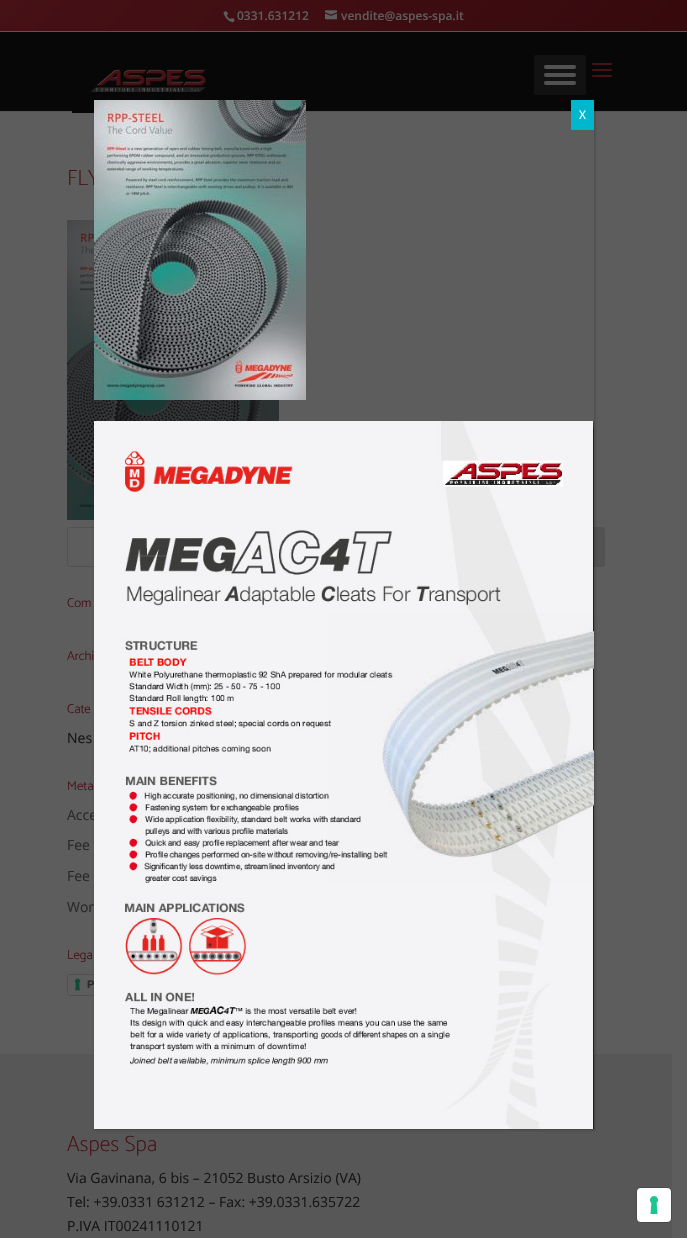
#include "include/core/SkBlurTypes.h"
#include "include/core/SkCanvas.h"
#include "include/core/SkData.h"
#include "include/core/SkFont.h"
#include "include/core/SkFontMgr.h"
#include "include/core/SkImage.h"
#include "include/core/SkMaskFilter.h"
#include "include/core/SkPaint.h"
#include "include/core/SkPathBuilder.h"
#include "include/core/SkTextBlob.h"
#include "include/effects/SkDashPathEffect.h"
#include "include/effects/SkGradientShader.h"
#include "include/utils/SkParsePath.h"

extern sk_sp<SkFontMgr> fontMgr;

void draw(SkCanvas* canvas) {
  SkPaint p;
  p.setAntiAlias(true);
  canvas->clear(SkColorSetRGB(93, 93, 93));
  {
    const SkColor colors[] = {SkColorSetRGB(71, 17, 22), SkColorSetRGB(54, 9, 13)};
    const float stops[] = {0, 1};
    const SkPoint ends[] = {{164, -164}, {523, 195}};
    p.setShader(SkGradientShader::MakeLinear(ends, colors, stops, 2, SkTileMode::kClamp));
    p.setAlpha(255);
  }
  canvas->drawRect(SkRect::MakeLTRB(0, 0, 687, 31), p);
  p.setShader(nullptr);
  p.setColor(SkColorSetRGB(87, 87, 87));
  canvas->drawRect(SkRect::MakeLTRB(0, 31, 687, 32), p);
  canvas->drawImageRect(SkImages::DeferredFromEncodedData(SkData::MakeFromFileName("images/1.png")), SkRect::MakeLTRB(223, 11, 235, 23), SkSamplingOptions());
  canvas->drawImageRect(SkImages::DeferredFromEncodedData(SkData::MakeFromFileName("images/2.png")), SkRect::MakeLTRB(325, 10, 337, 20), SkSamplingOptions());
  p.setColor(SkColorSetRGB(85, 85, 85));
  canvas->drawRect(SkRect::MakeLTRB(0, 111, 687, 112), p);
  p.setColor(SkColorSetRGB(7, 7, 7));
  canvas->drawRect(SkRect::MakeLTRB(0, 32, 687, 111), p);
  canvas->drawImageRect(SkImages::DeferredFromEncodedData(SkData::MakeFromFileName("images/3.png")), SkRect::MakeLTRB(72, 69, 217, 113), SkSamplingOptions());
  p.setColor(SkColorSetRGB(18, 18, 18));
  canvas->drawRoundRect(SkRect::MakeLTRB(534, 55, 586, 95), 2, 2, p);
  p.setColor(SkColorSetRGB(82, 82, 82));
  canvas->drawRoundRect(SkRect::MakeLTRB(544, 65, 576, 69), 2, 2, p);
  canvas->drawRoundRect(SkRect::MakeLTRB(544, 73, 576, 77), 2, 2, p);
  canvas->drawRoundRect(SkRect::MakeLTRB(544, 81, 576, 85), 2, 2, p);
  canvas->drawImageRect(SkImages::DeferredFromEncodedData(SkData::MakeFromFileName("images/4.png")), SkRect::MakeLTRB(592, 63, 612, 77), SkSamplingOptions());
  canvas->drawImageRect(SkImages::DeferredFromEncodedData(SkData::MakeFromFileName("images/5.png")), SkRect::MakeLTRB(67, 220, 279, 520), SkSamplingOptions());
  p.setStyle(SkPaint::kStroke_Style);
  p.setStrokeWidth(1);
  canvas->drawRoundRect(SkRect::MakeLTRB(67.5f, 527.5f, 604.5f, 566.5f), 2.5f, 2.5f, p);
  p.setStyle(SkPaint::kFill_Style);
  canvas->drawPath(SkPathBuilder().moveTo(546, 527).lineTo(602, 527).cubicTo(603.5f, 527, 605, 528.5f, 605, 530).lineTo(605, 564).cubicTo(605, 565.5f, 603.5f, 567, 602, 567).lineTo(546, 567).close().detach(), p);
  p.setColor(SkColorSetARGB(38, 7, 7, 7));
  p.setMaskFilter(SkMaskFilter::MakeBlur(kNormal_SkBlurStyle, 0.5f));
  canvas->drawRoundRect(SkRect::MakeLTRB(68, 976, 169, 996), 2, 2, p);
  p.setMaskFilter(nullptr);
  p.setColor(SkColorSetRGB(93, 93, 93));
  canvas->drawRoundRect(SkRect::MakeLTRB(67, 974, 170, 996), 3, 3, p);
  canvas->drawImageRect(SkImages::DeferredFromEncodedData(SkData::MakeFromFileName("images/6.png")), SkRect::MakeLTRB(74, 978, 81, 991), SkSamplingOptions());
  p.setStyle(SkPaint::kStroke_Style);
  p.setColor(SkColorSetARGB(38, 7, 7, 7));
  canvas->drawRoundRect(SkRect::MakeLTRB(67.5f, 974.5f, 169.5f, 995.5f), 2.5f, 2.5f, p);
  p.setStyle(SkPaint::kFill_Style);
  p.setColor(SkColorSetRGB(87, 87, 87));
  canvas->drawRect(SkRect::MakeLTRB(0, 1054, 672, 1238), p);
  canvas->save();
  canvas->clipPath(SkPathBuilder(SkPathFillType::kEvenOdd).moveTo(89, 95).lineTo(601, 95).lineTo(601, 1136).lineTo(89, 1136).close().moveTo(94, 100).lineTo(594, 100).lineTo(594, 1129).lineTo(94, 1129).close().detach(), true);
  p.setColor(SkColorSetARGB(59, 2, 2, 2));
  p.setMaskFilter(SkMaskFilter::MakeBlur(kNormal_SkBlurStyle, 1.5f));
  canvas->drawRect(SkRect::MakeLTRB(95, 101, 595, 1130), p);
  p.setMaskFilter(nullptr);
  canvas->restore();
  p.setColor(SkColorSetRGB(0, 183, 205));
  canvas->drawRect(SkRect::MakeLTRB(571, 100, 594, 130), p);
  p.setStyle(SkPaint::kStroke_Style);
  p.setColor(SkColorSetRGB(74, 74, 74));
  canvas->drawRoundRect(SkRect::MakeLTRB(636.5f, 1187.5f, 671.5f, 1222.5f), 4.5f, 4.5f, p);
  p.setStyle(SkPaint::kFill_Style);
  p.setColor(SK_ColorWHITE);
  canvas->drawRoundRect(SkRect::MakeLTRB(637, 1188, 671, 1222), 4, 4, p);
  canvas->drawImageRect(SkImages::DeferredFromEncodedData(SkData::MakeFromFileName("images/9.png")), SkRect::MakeLTRB(650, 1196, 658, 1214), SkSamplingOptions());
  SkFont font1(fontMgr->matchFamilyStyle("Open Sans", SkFontStyle(600, SkFontStyle::kNormal_Width, SkFontStyle::kUpright_Slant)), 12);
  font1.setSubpixel(true);
  p.setColor(SkColorSetRGB(93, 93, 93));
  canvas->drawString("0331.631212", 237, 20, font1, p);
  canvas->drawString("vendite@aspes-spa.it", 341, 20, font1, p);
  SkFont font2(fontMgr->matchFamilyStyle("Catamaran", SkFontStyle(100, SkFontStyle::kNormal_Width, SkFontStyle::kUpright_Slant)), 22);
  font2.setSubpixel(true);
  p.setColor(SkColorSetRGB(71, 17, 22));
  canvas->drawString("FLY", 67, 185, font2, p);
  SkFont font3(fontMgr->matchFamilyStyle("Catamaran", SkFontStyle(300, SkFontStyle::kNormal_Width, SkFontStyle::kUpright_Slant)), 13);
  font3.setSubpixel(true);
  canvas->drawString("Com", 67, 607, font3, p);
  canvas->drawString("Archi", 67, 660, font3, p);
  canvas->drawString("Cate", 67, 713, font3, p);
  SkFont font4(fontMgr->matchFamilyStyle("Open Sans", SkFontStyle::Normal()), 14);
  font4.setSubpixel(true);
  p.setColor(SkColorSetRGB(21, 21, 21));
  canvas->drawString("Nes", 67, 743, font4, p);
  p.setColor(SkColorSetRGB(71, 17, 22));
  canvas->drawString("Meta", 67, 790, font3, p);
  p.setColor(SkColorSetRGB(41, 41, 41));
  canvas->drawString("Acce", 67, 820, font4, p);
  canvas->drawString("Fee", 67, 850, font4, p);
  canvas->drawString("Fee", 67, 881, font4, p);
  canvas->drawString("Wor", 67, 912, font4, p);
  p.setColor(SkColorSetRGB(71, 17, 22));
  canvas->drawString("Lega", 67, 959, font3, p);
  SkFont font5(fontMgr->matchFamilyStyle("Liberation Sans", SkFontStyle::Bold()), 11);
  font5.setSubpixel(true);
  p.setColor(SkColorSetRGB(41, 41, 41));
  canvas->drawString("P", 87, 988, font5, p);
  p.setColor(SkColorSetRGB(71, 17, 22));
  canvas->drawString("Aspes Spa", 67, 1151, font2, p);
  p.setColor(SkColorSetRGB(21, 21, 21));
  canvas->drawString("Via Gavinana, 6 bis – 21052 Busto Arsizio (VA)", 67, 1183, font4, p);
  canvas->drawString("Tel: +39.0331 631212 – Fax: +39.0331.635722", 67, 1207, font4, p);
  canvas->drawString("P.IVA IT00241110121", 67, 1231, font4, p);
  canvas->drawImageRect(SkImages::DeferredFromEncodedData(SkData::MakeFromFileName("images/7.png")), SkRect::MakeLTRB(94, 100, 306, 400), SkSamplingOptions());
  canvas->drawImageRect(SkImages::DeferredFromEncodedData(SkData::MakeFromFileName("images/8.png")), SkRect::MakeLTRB(94, 421, 594, 1129), SkSamplingOptions());
  SkFont font6(fontMgr->matchFamilyStyle("Open Sans", SkFontStyle::Normal()), 12);
  font6.setSubpixel(true);
  p.setColor(SK_ColorWHITE);
  canvas->drawString("X", 579, 119, font6, p);
}
